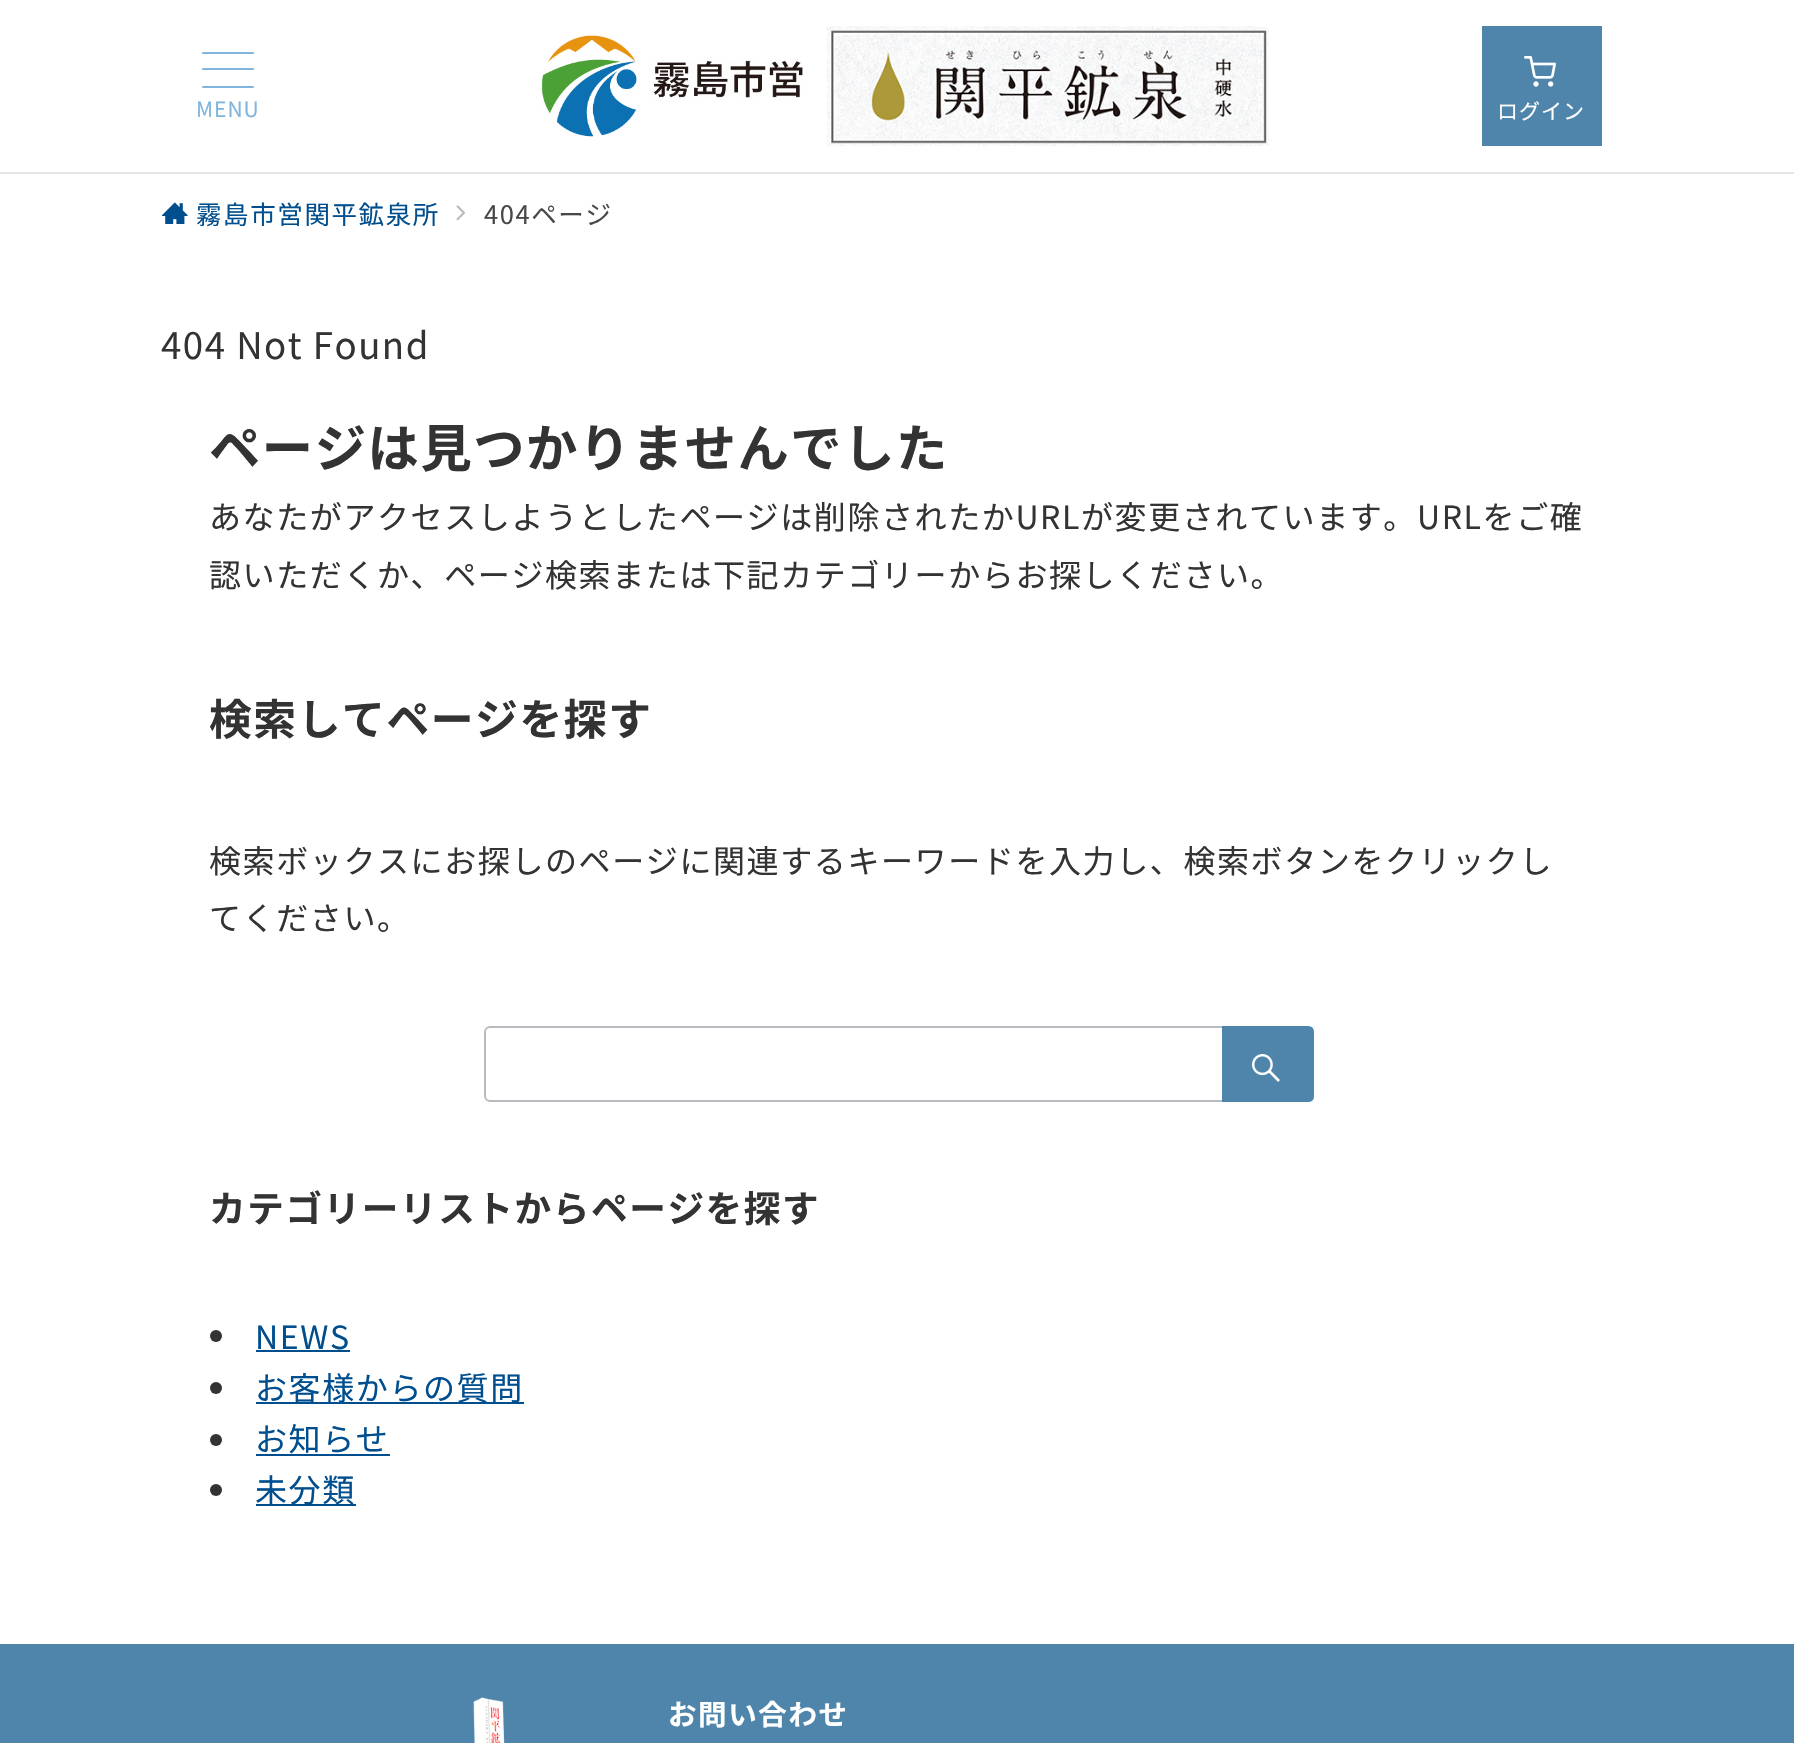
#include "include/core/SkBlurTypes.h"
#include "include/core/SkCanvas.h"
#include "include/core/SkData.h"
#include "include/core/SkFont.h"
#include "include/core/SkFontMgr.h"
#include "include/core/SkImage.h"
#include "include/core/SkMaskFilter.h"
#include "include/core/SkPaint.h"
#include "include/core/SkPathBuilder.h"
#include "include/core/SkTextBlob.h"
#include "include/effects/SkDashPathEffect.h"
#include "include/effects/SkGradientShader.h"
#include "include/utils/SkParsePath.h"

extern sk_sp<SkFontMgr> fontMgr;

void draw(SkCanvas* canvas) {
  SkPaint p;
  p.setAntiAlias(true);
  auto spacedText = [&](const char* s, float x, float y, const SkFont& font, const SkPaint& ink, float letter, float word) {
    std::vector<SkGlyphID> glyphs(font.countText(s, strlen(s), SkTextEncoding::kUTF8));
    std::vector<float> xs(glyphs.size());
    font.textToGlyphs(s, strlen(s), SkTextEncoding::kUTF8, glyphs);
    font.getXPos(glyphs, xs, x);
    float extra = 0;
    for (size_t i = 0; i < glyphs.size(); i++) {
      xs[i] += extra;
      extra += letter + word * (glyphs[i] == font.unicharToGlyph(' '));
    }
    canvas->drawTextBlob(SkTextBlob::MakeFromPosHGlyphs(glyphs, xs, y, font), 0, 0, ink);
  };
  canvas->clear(SK_ColorWHITE);
  p.setColor(SkColorSetRGB(230, 230, 230));
  canvas->drawRect(SkRect::MakeLTRB(0, 172, 1794, 174), p);
  p.setColor(SkColorSetRGB(128, 181, 221));
  canvas->drawRoundRect(SkRect::MakeLTRB(202, 52, 254, 54), 1, 1, p);
  canvas->drawRoundRect(SkRect::MakeLTRB(202, 68, 254, 70), 1, 1, p);
  canvas->drawRoundRect(SkRect::MakeLTRB(202, 86, 254, 88), 1, 1, p);
  canvas->drawImageRect(SkImages::DeferredFromEncodedData(SkData::MakeFromFileName("images/1.png")), SkRect::MakeLTRB(541, 35, 803, 137), SkSamplingOptions());
  canvas->drawImageRect(SkImages::DeferredFromEncodedData(SkData::MakeFromFileName("images/2.png")), SkRect::MakeLTRB(826, 26, 1269, 146), SkSamplingOptions());
  p.setColor(SkColorSetRGB(79, 133, 171));
  canvas->drawRect(SkRect::MakeLTRB(1482, 26, 1602, 146), p);
  canvas->drawImageRect(SkImages::DeferredFromEncodedData(SkData::MakeFromFileName("images/3.png")), SkRect::MakeLTRB(1524, 56, 1556, 87), SkSamplingOptions());
  canvas->drawImageRect(SkImages::DeferredFromEncodedData(SkData::MakeFromFileName("images/4.png")), SkRect::MakeLTRB(162, 202, 188, 224), SkSamplingOptions());
  canvas->drawImageRect(SkImages::DeferredFromEncodedData(SkData::MakeFromFileName("images/5.png")), SkRect::MakeLTRB(456, 205, 465, 221), SkSamplingOptions());
  p.setStyle(SkPaint::kStroke_Style);
  p.setStrokeWidth(2);
  p.setColor(SkColorSetRGB(184, 188, 192));
  canvas->drawRoundRect(SkRect::MakeLTRB(485, 1027, 1309, 1101), 5, 5, p);
  p.setStyle(SkPaint::kFill_Style);
  p.setColor(SkColorSetRGB(79, 133, 171));
  canvas->drawPath(SkPathBuilder().moveTo(1223, 1027).lineTo(1308, 1027).cubicTo(1311, 1027, 1313, 1029, 1313, 1032).lineTo(1313, 1096).cubicTo(1313, 1099, 1311, 1101, 1308, 1101).lineTo(1223, 1101).close().detach(), p);
  p.setStyle(SkPaint::kStroke_Style);
  canvas->drawPath(SkPathBuilder().moveTo(1223, 1027).lineTo(1308, 1027).cubicTo(1311, 1027, 1313, 1029, 1313, 1032).lineTo(1313, 1096).cubicTo(1313, 1099, 1311, 1101, 1308, 1101).lineTo(1223, 1101).close().detach(), p);
  canvas->drawImageRect(SkImages::DeferredFromEncodedData(SkData::MakeFromFileName("images/6.png")), SkRect::MakeLTRB(1252, 1054, 1280, 1082), SkSamplingOptions());
  p.setStyle(SkPaint::kFill_Style);
  p.setColor(SkColorSetRGB(51, 51, 51));
  canvas->drawCircle(216, 1336, 6, p);
  p.setColor(SkColorSetRGB(0, 78, 142));
  canvas->drawRect(SkRect::MakeLTRB(256, 1350, 350, 1352), p);
  p.setColor(SkColorSetRGB(51, 51, 51));
  canvas->drawCircle(216, 1388, 6, p);
  p.setColor(SkColorSetRGB(0, 78, 142));
  canvas->drawRect(SkRect::MakeLTRB(256, 1402, 524, 1404), p);
  p.setColor(SkColorSetRGB(51, 51, 51));
  canvas->drawCircle(216, 1440, 6, p);
  p.setColor(SkColorSetRGB(0, 78, 142));
  canvas->drawRect(SkRect::MakeLTRB(256, 1454, 390, 1456), p);
  p.setColor(SkColorSetRGB(51, 51, 51));
  canvas->drawCircle(216, 1490, 6, p);
  p.setColor(SkColorSetRGB(0, 78, 142));
  canvas->drawRect(SkRect::MakeLTRB(256, 1504, 356, 1506), p);
  p.setColor(SkColorSetRGB(79, 133, 171));
  canvas->drawRect(SkRect::MakeLTRB(0, 1644, 1794, 1743), p);
  canvas->drawImageRect(SkImages::DeferredFromEncodedData(SkData::MakeFromFileName("images/7.png")), SkRect::MakeLTRB(473, 1697, 505, 1743), SkSamplingOptions());
  SkFont font1(fontMgr->matchFamilyStyle("Noto Sans JP", SkFontStyle::Normal()), 21);
  font1.setSubpixel(true);
  p.setColor(SkColorSetRGB(128, 181, 221));
  spacedText("MENU", 196, 117, font1, p, 1, 0);
  p.setColor(SK_ColorWHITE);
  spacedText("ログイン", 1497, 119, font1, p, 1, 0);
  SkFont font2(fontMgr->matchFamilyStyle("Noto Sans JP", SkFontStyle::Normal()), 25.5f);
  font2.setSubpixel(true);
  p.setColor(SkColorSetRGB(0, 78, 142));
  spacedText("霧島市営関平鉱泉所", 196, 224, font2, p, 1.6f, 0);
  p.setColor(SkColorSetRGB(72, 72, 72));
  spacedText("404ページ", 484, 224, font2, p, 1.6f, 0);
  SkFont font3(fontMgr->matchFamilyStyle("Noto Sans JP", SkFontStyle::Normal()), 36.6f);
  font3.setSubpixel(true);
  p.setColor(SkColorSetRGB(51, 51, 51));
  spacedText("404 Not Found", 161, 359, font3, p, 1.5f, 0);
  SkFont font4(fontMgr->matchFamilyStyle("Noto Sans JP", SkFontStyle::Bold()), 51.25f);
  font4.setSubpixel(true);
  spacedText("ページは見つかりませんでした", 209, 467, font4, p, 1.6f, 0);
  SkFont font5(fontMgr->matchFamilyStyle("Noto Sans JP", SkFontStyle::Normal()), 32);
  font5.setSubpixel(true);
  spacedText("あなたがアクセスしようとしたページは削除されたかURLが変更されています。URLをご確", 209, 529, font5, p, 1.6f, 0);
  spacedText("認いただくか、ページ検索または下記カテゴリーからお探しください。", 209, 587, font5, p, 1.6f, 0);
  SkFont font6(fontMgr->matchFamilyStyle("Noto Sans JP", SkFontStyle::Bold()), 42.75f);
  font6.setSubpixel(true);
  spacedText("検索してページを探す", 209, 735, font6, p, 1.6f, 0);
  spacedText("検索ボックスにお探しのページに関連するキーワードを入力し、検索ボタンをクリックし", 209, 873, font5, p, 1.6f, 0);
  spacedText("てください。", 209, 930, font5, p, 1.6f, 0);
  SkFont font7(fontMgr->matchFamilyStyle("Noto Sans JP", SkFontStyle::Bold()), 36.6f);
  font7.setSubpixel(true);
  spacedText("カテゴリーリストからページを探す", 209, 1222, font7, p, 1.6f, 0);
  p.setColor(SkColorSetRGB(0, 78, 142));
  spacedText("NEWS", 255, 1349, font5, p, 1.6f, 0);
  spacedText("お客様からの質問", 255, 1400, font5, p, 1.6f, 0);
  spacedText("お知らせ", 255, 1451, font5, p, 1.6f, 0);
  spacedText("未分類", 255, 1502, font5, p, 1.6f, 0);
  SkFont font8(fontMgr->matchFamilyStyle("Noto Sans JP", SkFontStyle::Bold()), 28.5f);
  font8.setSubpixel(true);
  p.setColor(SK_ColorWHITE);
  spacedText("お問い合わせ", 668, 1725, font8, p, 1.6f, 0);
}
